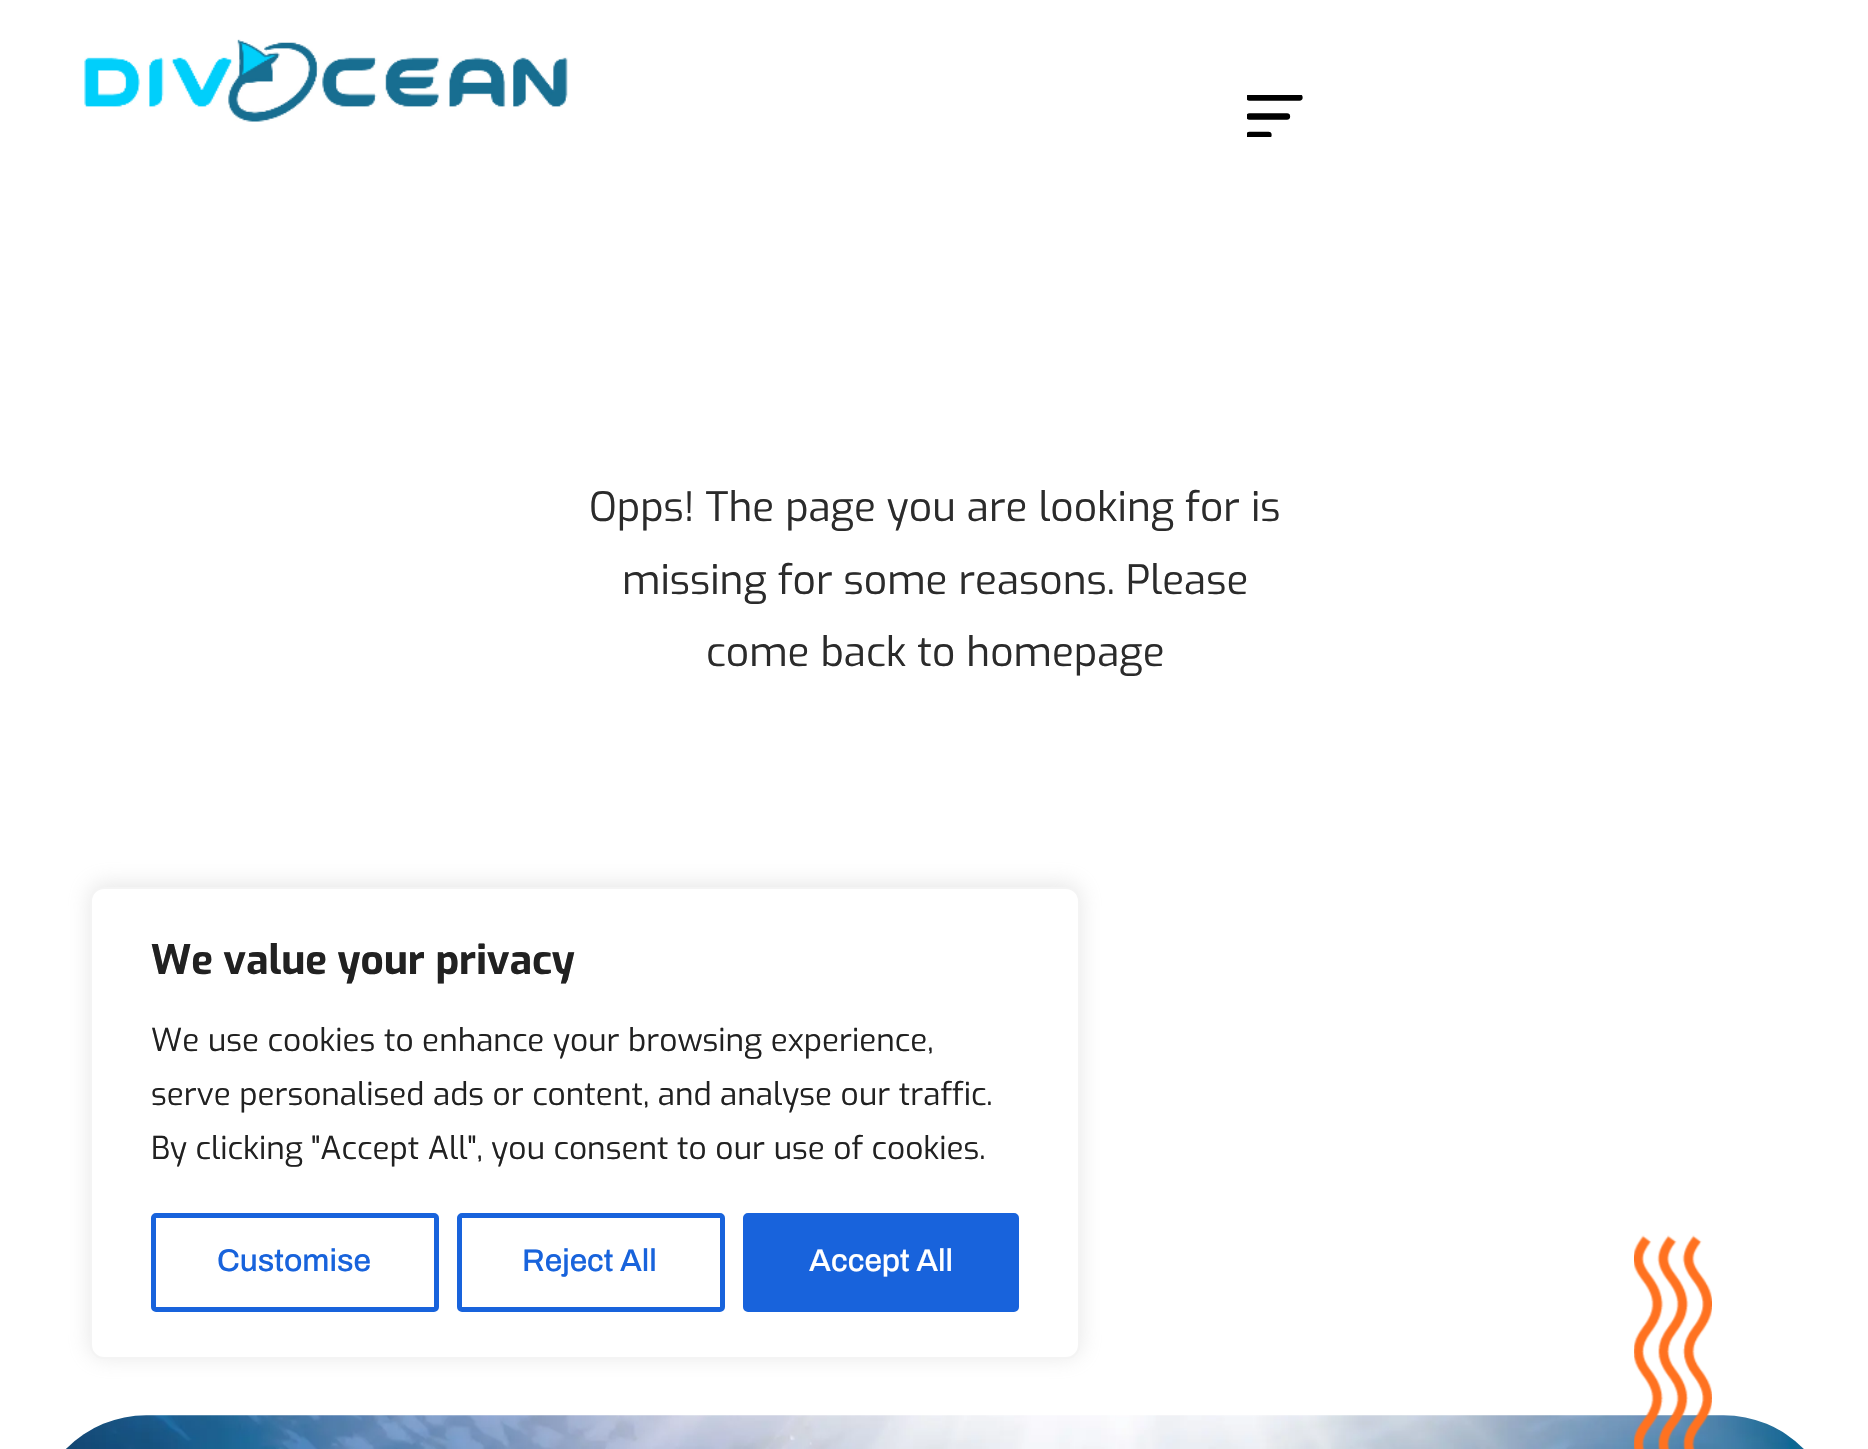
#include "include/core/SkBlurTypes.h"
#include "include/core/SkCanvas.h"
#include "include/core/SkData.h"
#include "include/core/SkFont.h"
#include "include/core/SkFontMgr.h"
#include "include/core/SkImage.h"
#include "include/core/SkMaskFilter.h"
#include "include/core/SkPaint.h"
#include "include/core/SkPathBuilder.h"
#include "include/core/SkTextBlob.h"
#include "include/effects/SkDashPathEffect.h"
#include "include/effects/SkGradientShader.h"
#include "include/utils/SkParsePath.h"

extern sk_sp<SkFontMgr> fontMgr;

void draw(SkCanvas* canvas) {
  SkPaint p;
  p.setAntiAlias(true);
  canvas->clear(SK_ColorWHITE);
  canvas->drawImageRect(SkImages::DeferredFromEncodedData(SkData::MakeFromFileName("images/1.png")), SkRect::MakeLTRB(84, 39, 568, 122), SkSamplingOptions());
  canvas->save();
  canvas->clipRect(SkRect::MakeLTRB(1247, 95, 1303, 137));
  p.setStyle(SkPaint::kStroke_Style);
  p.setStrokeWidth(6.3f);
  p.setStrokeCap(SkPaint::kRound_Cap);
  p.setColor(SK_ColorBLACK);
  canvas->drawPath(SkPathBuilder().moveTo(1249.5f, 135).lineTo(1268.5f, 135).moveTo(1249.5f, 116.5f).lineTo(1287, 116.5f).moveTo(1249.5f, 97.5f).lineTo(1299.5f, 97.5f).detach(), p);
  canvas->restore();
  canvas->drawImageRect(SkImages::DeferredFromEncodedData(SkData::MakeFromFileName("images/2.png")), SkRect::MakeLTRB(66, 1415, 1804, 1449), SkSamplingOptions());
  canvas->drawImageRect(SkImages::DeferredFromEncodedData(SkData::MakeFromFileName("images/3.png")), SkRect::MakeLTRB(1634, 1235, 1712, 1449), SkSamplingOptions());
  p.setStyle(SkPaint::kFill_Style);
  p.setColor(SkColorSetARGB(77, 172, 171, 171));
  p.setMaskFilter(SkMaskFilter::MakeBlur(kNormal_SkBlurStyle, 11));
  canvas->drawRoundRect(SkRect::MakeLTRB(90, 884, 1080, 1357), 14, 14, p);
  p.setMaskFilter(nullptr);
  p.setColor(SK_ColorWHITE);
  canvas->drawRoundRect(SkRect::MakeLTRB(91, 888, 1079, 1358), 13, 13, p);
  p.setStyle(SkPaint::kStroke_Style);
  p.setStrokeWidth(2);
  p.setStrokeCap(SkPaint::kButt_Cap);
  p.setColor(SkColorSetRGB(244, 244, 244));
  canvas->drawRoundRect(SkRect::MakeLTRB(91, 888, 1079, 1358), 13, 13, p);
  p.setStrokeWidth(5);
  p.setColor(SkColorSetRGB(24, 99, 220));
  canvas->drawRoundRect(SkRect::MakeLTRB(153.5f, 1215.5f, 436.5f, 1309.5f), 2.5f, 2.5f, p);
  canvas->drawRoundRect(SkRect::MakeLTRB(459.5f, 1215.5f, 722.5f, 1309.5f), 2.5f, 2.5f, p);
  p.setStyle(SkPaint::kFill_Style);
  canvas->drawRoundRect(SkRect::MakeLTRB(745.5f, 1215.5f, 1016.5f, 1309.5f), 2.5f, 2.5f, p);
  p.setStyle(SkPaint::kStroke_Style);
  canvas->drawRoundRect(SkRect::MakeLTRB(745.5f, 1215.5f, 1016.5f, 1309.5f), 2.5f, 2.5f, p);
  SkFont font1(fontMgr->matchFamilyStyle("Exo", SkFontStyle::Normal()), 40.5f);
  font1.setSubpixel(true);
  p.setStyle(SkPaint::kFill_Style);
  p.setColor(SkColorSetRGB(43, 43, 43));
  canvas->drawString("Opps! The page you are looking for is", 589, 521, font1, p);
  canvas->drawString("missing for some reasons. Please", 622, 594, font1, p);
  canvas->drawString("come back to homepage", 706, 666, font1, p);
  SkFont font2(fontMgr->matchFamilyStyle("Exo", SkFontStyle::Bold()), 40.5f);
  font2.setSubpixel(true);
  p.setColor(SkColorSetRGB(33, 33, 33));
  canvas->drawString("We value your privacy", 151, 974, font2, p);
  SkFont font3(fontMgr->matchFamilyStyle("Exo", SkFontStyle::Normal()), 31.5f);
  font3.setSubpixel(true);
  canvas->drawString("We use cookies to enhance your browsing experience,", 151, 1051, font3, p);
  canvas->drawString("serve personalised ads or content, and analyse our traffic.", 151, 1105, font3, p);
  canvas->drawString("By clicking \"Accept All\", you consent to our use of cookies.", 151, 1159, font3, p);
  SkFont font4(fontMgr->matchFamilyStyle("Archivo", SkFontStyle(500, SkFontStyle::kNormal_Width, SkFontStyle::kUpright_Slant)), 31.5f);
  font4.setSubpixel(true);
  p.setColor(SkColorSetRGB(24, 99, 220));
  canvas->drawString("Customise", 217, 1271, font4, p);
  canvas->drawString("Reject All", 522, 1271, font4, p);
  p.setColor(SK_ColorWHITE);
  canvas->drawString("Accept All", 809, 1271, font4, p);
}
